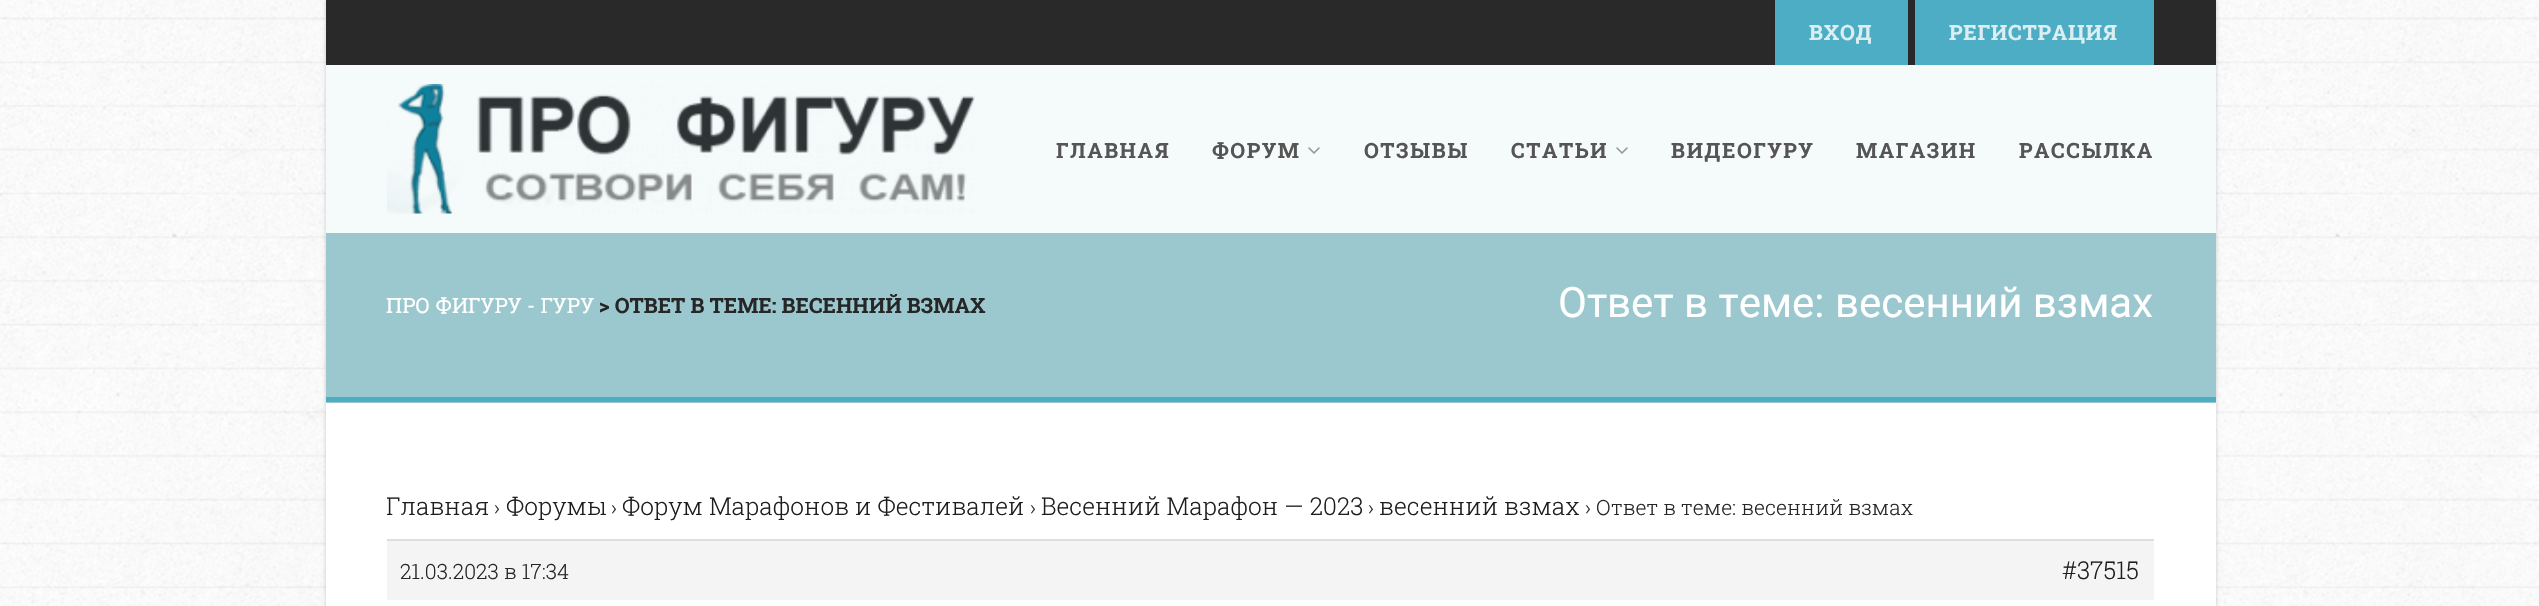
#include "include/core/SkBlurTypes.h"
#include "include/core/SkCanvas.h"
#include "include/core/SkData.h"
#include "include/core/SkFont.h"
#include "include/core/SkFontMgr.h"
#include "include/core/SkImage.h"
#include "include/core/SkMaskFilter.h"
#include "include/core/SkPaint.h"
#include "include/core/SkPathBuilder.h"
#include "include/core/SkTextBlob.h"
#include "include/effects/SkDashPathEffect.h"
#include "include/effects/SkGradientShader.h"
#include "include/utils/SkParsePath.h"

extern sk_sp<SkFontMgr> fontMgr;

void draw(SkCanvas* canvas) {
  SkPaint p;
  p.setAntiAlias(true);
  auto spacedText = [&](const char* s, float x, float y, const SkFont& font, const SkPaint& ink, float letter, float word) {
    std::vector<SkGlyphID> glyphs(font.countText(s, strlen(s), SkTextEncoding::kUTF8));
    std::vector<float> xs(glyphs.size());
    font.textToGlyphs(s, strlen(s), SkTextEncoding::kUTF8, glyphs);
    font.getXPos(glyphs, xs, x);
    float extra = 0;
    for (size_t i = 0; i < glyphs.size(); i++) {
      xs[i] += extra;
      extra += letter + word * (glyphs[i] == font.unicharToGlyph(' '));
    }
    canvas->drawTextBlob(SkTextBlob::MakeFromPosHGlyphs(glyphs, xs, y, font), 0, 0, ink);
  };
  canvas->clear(SK_ColorWHITE);
  canvas->drawImageRect(SkImages::DeferredFromEncodedData(SkData::MakeFromFileName("images/1.png")), SkRect::MakeLTRB(0, 0, 2539, 606), SkSamplingOptions());
  p.setColor(SkColorSetARGB(51, 0, 0, 0));
  p.setMaskFilter(SkMaskFilter::MakeBlur(kNormal_SkBlurStyle, 2));
  canvas->drawRect(SkRect::MakeLTRB(326, 0, 2216, 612), p);
  p.setMaskFilter(nullptr);
  p.setColor(SK_ColorWHITE);
  canvas->drawRect(SkRect::MakeLTRB(326, 403, 2216, 606), p);
  p.setColor(SkColorSetRGB(41, 41, 41));
  canvas->drawRect(SkRect::MakeLTRB(326, 0, 2216, 65), p);
  p.setColor(SkColorSetRGB(76, 173, 197));
  canvas->drawRect(SkRect::MakeLTRB(1775, 0, 1908, 65), p);
  canvas->drawRect(SkRect::MakeLTRB(1915, 0, 2154, 65), p);
  p.setColor(SkColorSetRGB(245, 250, 250));
  canvas->drawRect(SkRect::MakeLTRB(326, 65, 2216, 233), p);
  canvas->drawImageRect(SkImages::DeferredFromEncodedData(SkData::MakeFromFileName("images/2.png")), SkRect::MakeLTRB(387, 84, 975, 214), SkSamplingOptions());
  canvas->drawImageRect(SkImages::DeferredFromEncodedData(SkData::MakeFromFileName("images/3.png")), SkRect::MakeLTRB(1308, 147, 1320, 154), SkSamplingOptions());
  canvas->drawImageRect(SkImages::DeferredFromEncodedData(SkData::MakeFromFileName("images/3.png")), SkRect::MakeLTRB(1616, 147, 1628, 154), SkSamplingOptions());
  p.setColor(SkColorSetRGB(155, 200, 206));
  canvas->drawRect(SkRect::MakeLTRB(326, 233, 2216, 403), p);
  p.setColor(SkColorSetRGB(76, 173, 197));
  canvas->drawRect(SkRect::MakeLTRB(326, 397, 2216, 402), p);
  p.setColor(SkColorSetRGB(244, 244, 244));
  canvas->drawRect(SkRect::MakeLTRB(387, 541, 2154, 600), p);
  p.setColor(SkColorSetRGB(221, 221, 221));
  canvas->drawRect(SkRect::MakeLTRB(387, 539, 2154, 541), p);
  SkFont font1(fontMgr->matchFamilyStyle("Roboto Slab", SkFontStyle::Bold()), 21);
  font1.setSubpixel(true);
  p.setColor(SkColorSetRGB(219, 239, 243));
  spacedText("ВХОД", 1809, 40, font1, p, 0.75f, 0);
  spacedText("РЕГИСТРАЦИЯ", 1949, 40, font1, p, 0.75f, 0);
  p.setColor(SkColorSetRGB(85, 85, 85));
  spacedText("ГЛАВНАЯ", 1056, 158, font1, p, 1.5f, 0);
  spacedText("ФОРУМ", 1212, 158, font1, p, 1.5f, 0);
  spacedText("ОТЗЫВЫ", 1364, 158, font1, p, 1.5f, 0);
  spacedText("СТАТЬИ", 1511, 158, font1, p, 1.5f, 0);
  spacedText("ВИДЕОГУРУ", 1671, 158, font1, p, 1.5f, 0);
  spacedText("МАГАЗИН", 1856, 158, font1, p, 1.5f, 0);
  spacedText("РАССЫЛКА", 2019, 158, font1, p, 1.5f, 0);
  SkFont font2(fontMgr->matchFamilyStyle("Roboto Slab", SkFontStyle::Normal()), 21);
  font2.setSubpixel(true);
  p.setColor(SK_ColorWHITE);
  canvas->drawString("ПРО ФИГУРУ - ГУРУ", 386, 313, font2, p);
  p.setColor(SkColorSetRGB(38, 38, 38));
  canvas->drawString("> ОТВЕТ В ТЕМЕ: ВЕСЕННИЙ ВЗМАХ", 599, 313, font1, p);
  SkFont font3(fontMgr->matchFamilyStyle("Roboto", SkFontStyle::Normal()), 42);
  font3.setSubpixel(true);
  p.setColor(SK_ColorWHITE);
  canvas->drawString("Ответ в теме: весенний взмах", 1558, 317, font3, p);
  canvas->save();
  canvas->clipRect(SkRect::MakeLTRB(387, 490, 2154, 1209));
  SkFont font4(fontMgr->matchFamilyStyle("Roboto Slab", SkFontStyle(300, SkFontStyle::kNormal_Width, SkFontStyle::kUpright_Slant)), 24.5f);
  font4.setSubpixel(true);
  p.setColor(SkColorSetRGB(30, 30, 30));
  canvas->drawString("Главная", 386, 515, font4, p);
  canvas->restore();
  SkFont font5(fontMgr->matchFamilyStyle("Roboto Slab", SkFontStyle(300, SkFontStyle::kNormal_Width, SkFontStyle::kUpright_Slant)), 21);
  font5.setSubpixel(true);
  p.setColor(SkColorSetRGB(38, 38, 38));
  canvas->drawString("›", 494, 515, font5, p);
  p.setColor(SkColorSetRGB(30, 30, 30));
  canvas->drawString("Форумы", 506, 515, font4, p);
  p.setColor(SkColorSetRGB(38, 38, 38));
  canvas->drawString("›", 611, 515, font5, p);
  p.setColor(SkColorSetRGB(30, 30, 30));
  canvas->drawString("Форум Марафонов и Фестивалей", 622, 515, font4, p);
  p.setColor(SkColorSetRGB(38, 38, 38));
  canvas->drawString("›", 1030, 515, font5, p);
  p.setColor(SkColorSetRGB(30, 30, 30));
  canvas->drawString("Весенний Марафон — 2023", 1041, 515, font4, p);
  p.setColor(SkColorSetRGB(38, 38, 38));
  canvas->drawString("›", 1368, 515, font5, p);
  p.setColor(SkColorSetRGB(30, 30, 30));
  canvas->drawString("весенний взмах", 1379, 515, font4, p);
  p.setColor(SkColorSetRGB(38, 38, 38));
  canvas->drawString("› Ответ в теме: весенний взмах", 1585, 515, font5, p);
  canvas->drawString("21.03.2023 в 17:34", 400, 579, font5, p);
  p.setColor(SkColorSetRGB(30, 30, 30));
  canvas->drawString("#37515", 2062, 579, font4, p);
}
